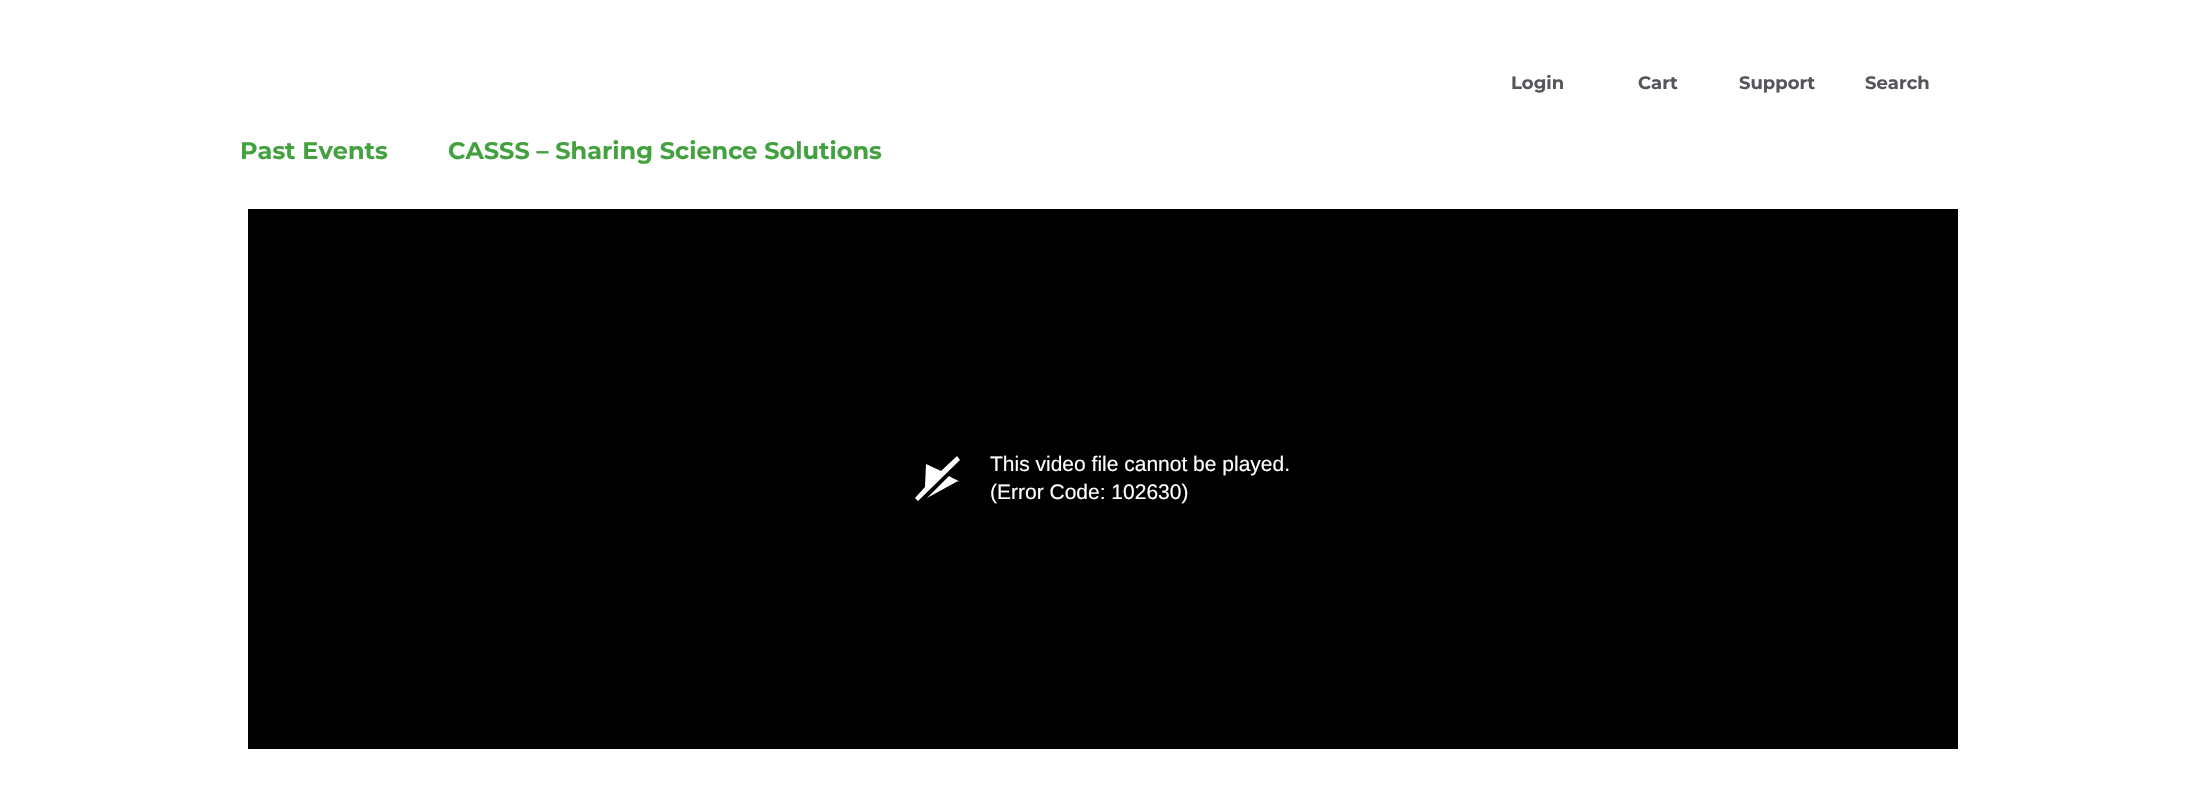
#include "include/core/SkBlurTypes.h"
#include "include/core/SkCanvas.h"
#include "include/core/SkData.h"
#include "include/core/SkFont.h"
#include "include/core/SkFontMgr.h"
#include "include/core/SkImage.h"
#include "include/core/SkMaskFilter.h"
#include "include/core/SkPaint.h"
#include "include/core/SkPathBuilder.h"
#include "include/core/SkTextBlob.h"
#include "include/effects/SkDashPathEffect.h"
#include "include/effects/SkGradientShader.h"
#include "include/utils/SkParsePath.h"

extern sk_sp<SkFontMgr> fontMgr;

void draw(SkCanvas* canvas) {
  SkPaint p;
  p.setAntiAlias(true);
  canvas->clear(SK_ColorWHITE);
  p.setColor(SK_ColorBLACK);
  canvas->drawRect(SkRect::MakeLTRB(248, 209, 1958, 749), p);
  p.setColor(SK_ColorWHITE);
  canvas->drawPath(SkPathBuilder().moveTo(958, 481).lineTo(927, 498).lineTo(949, 476).cubicTo(958, 481, 960, 481, 958, 482).close().moveTo(957, 456).lineTo(941, 471).lineTo(926, 464).lineTo(925, 487).lineTo(915, 498).lineTo(918, 501).lineTo(960, 460).close().detach(), p);
  SkFont font1(fontMgr->matchFamilyStyle("Montserrat", SkFontStyle::Bold()), 18);
  font1.setSubpixel(true);
  p.setColor(SkColorSetRGB(84, 86, 90));
  canvas->drawString("Login", 1511, 89, font1, p);
  canvas->drawString("Cart", 1638, 89, font1, p);
  canvas->drawString("Support", 1739, 89, font1, p);
  canvas->drawString("Search", 1865, 89, font1, p);
  SkFont font2(fontMgr->matchFamilyStyle("Montserrat", SkFontStyle::Bold()), 24);
  font2.setSubpixel(true);
  p.setColor(SkColorSetRGB(68, 161, 63));
  canvas->drawString("Past Events", 240, 159, font2, p);
  canvas->drawString("CASSS – Sharing Science Solutions", 448, 159, font2, p);
  SkFont font3(fontMgr->matchFamilyStyle("Liberation Sans", SkFontStyle::Normal()), 21);
  font3.setSubpixel(true);
  p.setColor(SK_ColorWHITE);
  canvas->drawString("This video file cannot be played.", 990, 471, font3, p);
  canvas->drawString("(Error Code: 102630)", 990, 499, font3, p);
}
